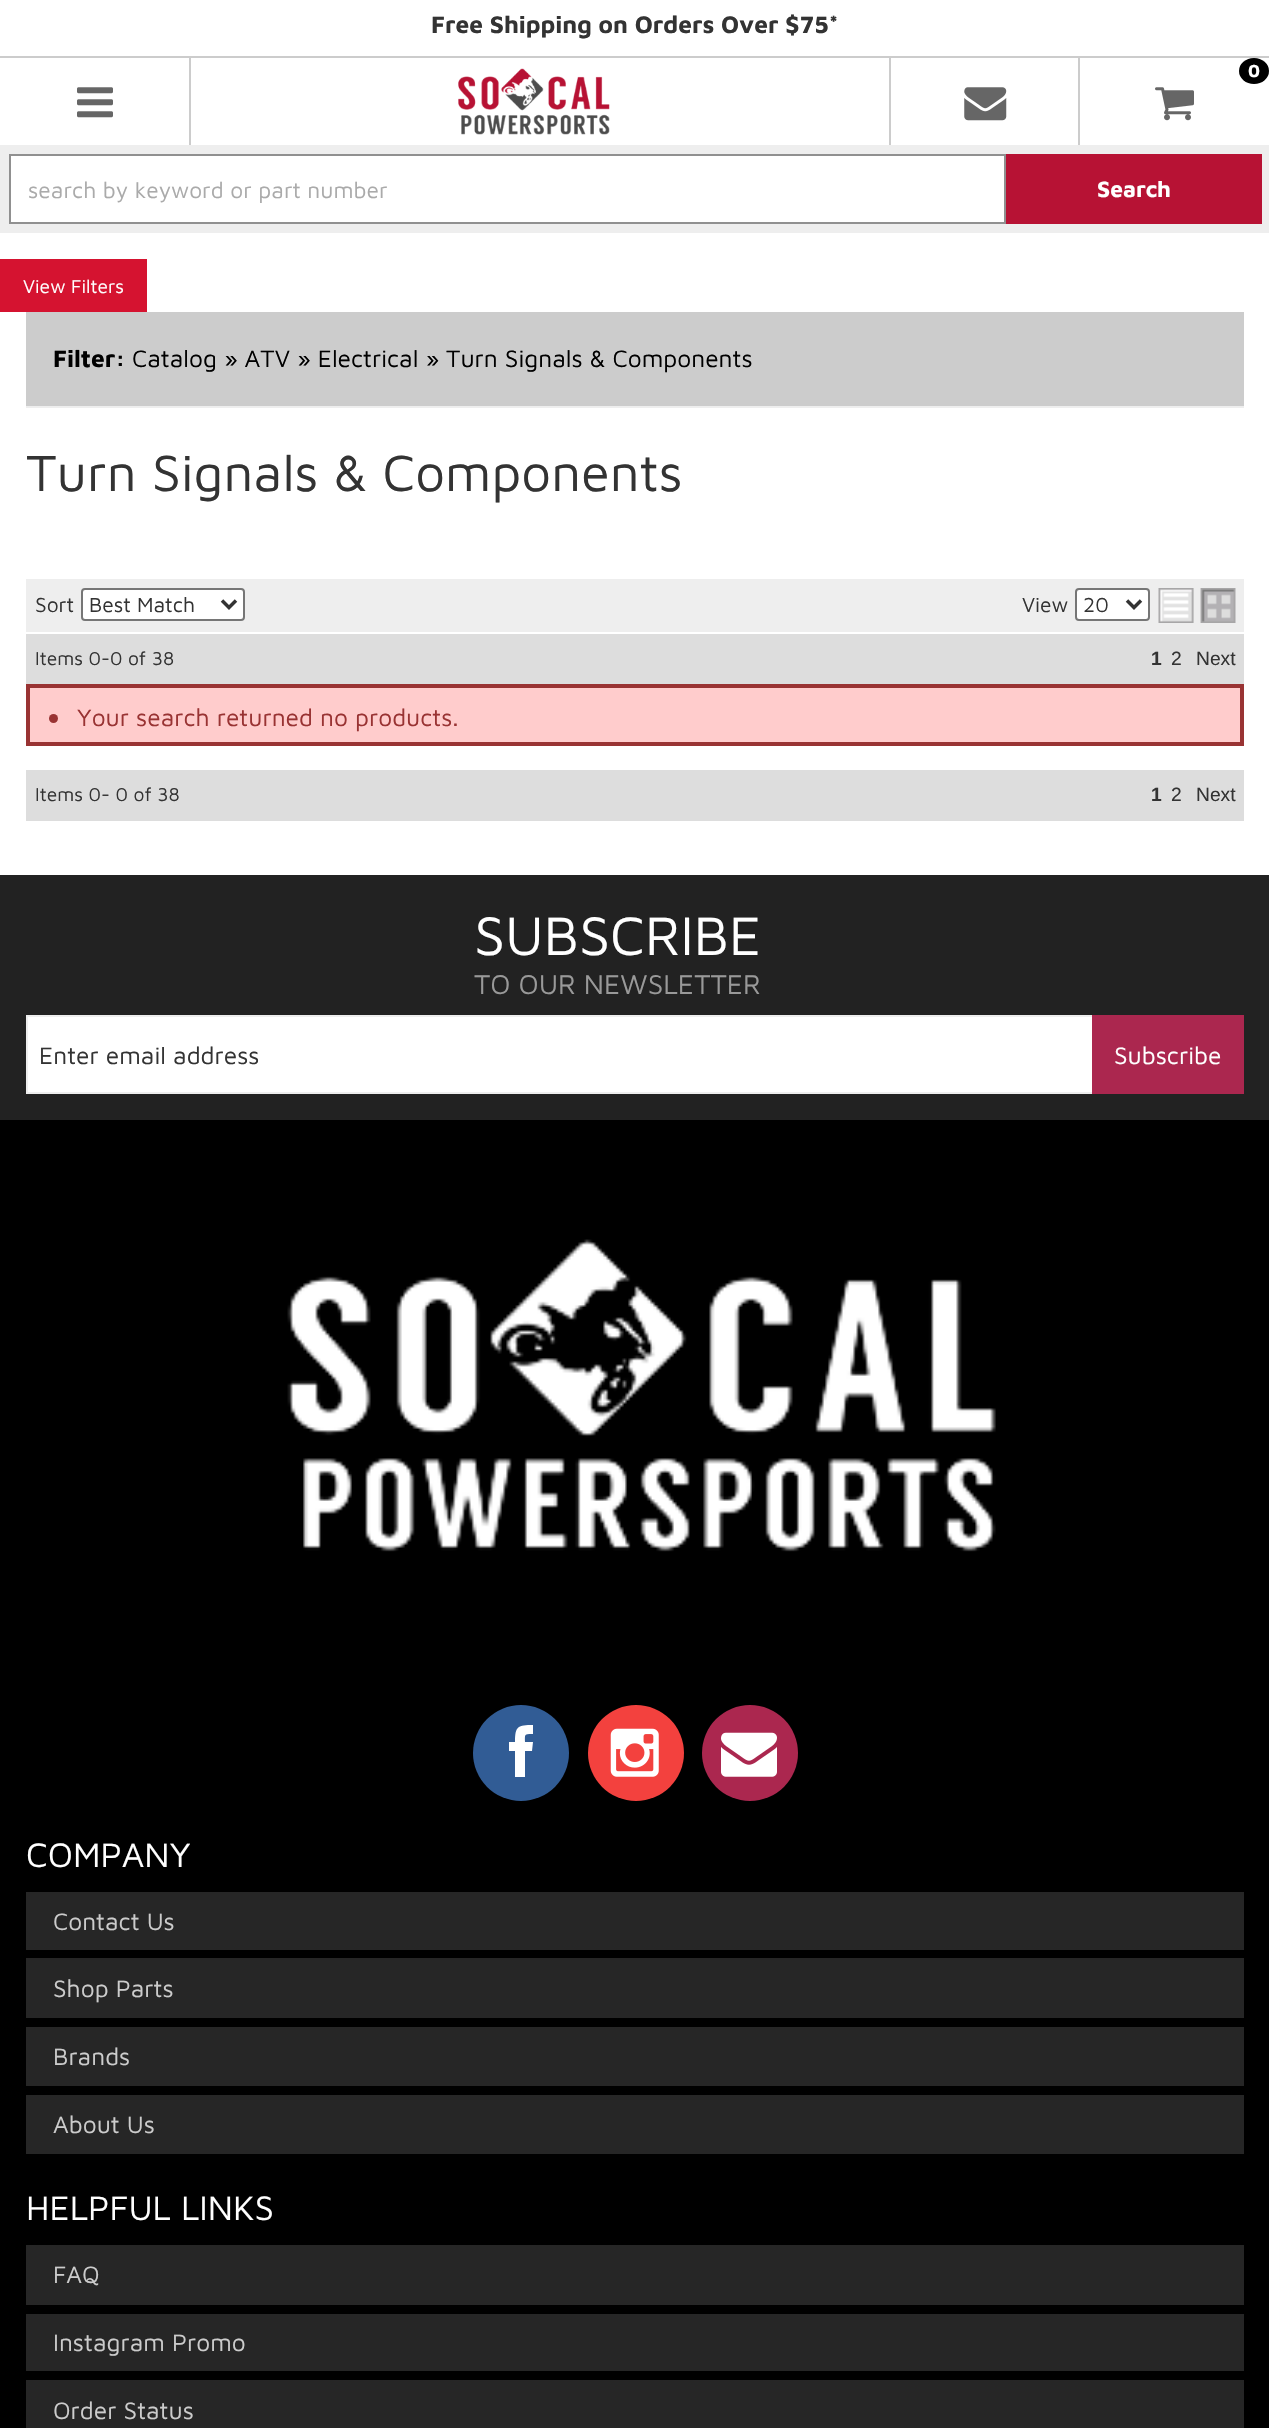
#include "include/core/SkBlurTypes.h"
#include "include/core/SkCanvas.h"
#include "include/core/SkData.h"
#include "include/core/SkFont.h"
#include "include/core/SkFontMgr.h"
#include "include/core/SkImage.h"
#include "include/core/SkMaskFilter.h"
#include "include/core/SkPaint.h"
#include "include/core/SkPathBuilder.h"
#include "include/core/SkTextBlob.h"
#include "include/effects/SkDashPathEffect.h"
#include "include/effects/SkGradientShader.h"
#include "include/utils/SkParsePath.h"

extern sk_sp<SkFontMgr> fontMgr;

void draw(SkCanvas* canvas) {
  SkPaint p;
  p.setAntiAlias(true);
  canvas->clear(SK_ColorWHITE);
  p.setColor(SkColorSetRGB(204, 204, 204));
  canvas->drawRect(SkRect::MakeLTRB(0, 56, 1269, 58), p);
  canvas->drawRect(SkRect::MakeLTRB(189, 58, 191, 145), p);
  canvas->drawImageRect(SkImages::DeferredFromEncodedData(SkData::MakeFromFileName("images/1.png")), SkRect::MakeLTRB(77, 87, 113, 118), SkSamplingOptions());
  canvas->drawImageRect(SkImages::DeferredFromEncodedData(SkData::MakeFromFileName("images/2.png")), SkRect::MakeLTRB(458, 68, 610, 135), SkSamplingOptions());
  canvas->drawRect(SkRect::MakeLTRB(1078, 58, 1080, 145), p);
  canvas->drawRect(SkRect::MakeLTRB(889, 58, 891, 145), p);
  canvas->drawImageRect(SkImages::DeferredFromEncodedData(SkData::MakeFromFileName("images/3.png")), SkRect::MakeLTRB(964, 87, 1007, 121), SkSamplingOptions());
  p.setColor(SK_ColorBLACK);
  canvas->drawOval(SkRect::MakeLTRB(1239, 58, 1269, 84), p);
  canvas->drawImageRect(SkImages::DeferredFromEncodedData(SkData::MakeFromFileName("images/4.png")), SkRect::MakeLTRB(1155, 87, 1194, 121), SkSamplingOptions());
  p.setColor(SkColorSetRGB(238, 238, 238));
  canvas->drawRect(SkRect::MakeLTRB(0, 145, 1269, 233), p);
  p.setColor(SK_ColorWHITE);
  canvas->drawRect(SkRect::MakeLTRB(10, 155, 1005, 223), p);
  p.setStyle(SkPaint::kStroke_Style);
  p.setStrokeWidth(2);
  p.setColor(SkColorSetRGB(144, 144, 144));
  canvas->drawRect(SkRect::MakeLTRB(10, 155, 1005, 223), p);
  p.setStyle(SkPaint::kFill_Style);
  p.setColor(SkColorSetRGB(183, 18, 52));
  canvas->drawRect(SkRect::MakeLTRB(1006, 154, 1262, 224), p);
  p.setColor(SkColorSetRGB(213, 19, 48));
  canvas->drawRect(SkRect::MakeLTRB(0, 259, 147, 312), p);
  p.setColor(SkColorSetRGB(204, 204, 204));
  canvas->drawRect(SkRect::MakeLTRB(26, 312, 1244, 406), p);
  p.setColor(SkColorSetRGB(238, 238, 238));
  canvas->drawRect(SkRect::MakeLTRB(26, 406, 1244, 408), p);
  canvas->drawRect(SkRect::MakeLTRB(26, 579, 1244, 632), p);
  p.setColor(SK_ColorWHITE);
  canvas->drawRoundRect(SkRect::MakeLTRB(82, 589, 244, 620), 3, 3, p);
  p.setStyle(SkPaint::kStroke_Style);
  p.setColor(SkColorSetRGB(118, 118, 118));
  canvas->drawRoundRect(SkRect::MakeLTRB(82, 589, 244, 620), 3, 3, p);
  p.setStrokeWidth(3.5f);
  p.setColor(SkColorSetRGB(51, 51, 51));
  canvas->drawPath(SkPathBuilder().moveTo(222, 600.5f).lineTo(229, 607.5f).lineTo(236, 600.5f).detach(), p);
  p.setStyle(SkPaint::kFill_Style);
  p.setColor(SK_ColorWHITE);
  canvas->drawRoundRect(SkRect::MakeLTRB(1076, 589, 1149, 620), 3, 3, p);
  p.setStyle(SkPaint::kStroke_Style);
  p.setStrokeWidth(2);
  p.setColor(SkColorSetRGB(118, 118, 118));
  canvas->drawRoundRect(SkRect::MakeLTRB(1076, 589, 1149, 620), 3, 3, p);
  p.setStrokeWidth(3.5f);
  p.setColor(SkColorSetRGB(51, 51, 51));
  canvas->drawPath(SkPathBuilder().moveTo(1127, 600.5f).lineTo(1134, 607.5f).lineTo(1141, 600.5f).detach(), p);
  canvas->drawImageRect(SkImages::DeferredFromEncodedData(SkData::MakeFromFileName("images/5.png")), SkRect::MakeLTRB(1158, 588, 1236, 623), SkSamplingOptions());
  p.setStyle(SkPaint::kFill_Style);
  p.setColor(SkColorSetRGB(221, 221, 221));
  canvas->drawRect(SkRect::MakeLTRB(26, 634, 1244, 684), p);
  p.setColor(SkColorSetRGB(255, 204, 204));
  canvas->drawRect(SkRect::MakeLTRB(28, 686, 1242, 744), p);
  p.setStyle(SkPaint::kStroke_Style);
  p.setStrokeWidth(4);
  p.setColor(SkColorSetRGB(153, 51, 51));
  canvas->drawRect(SkRect::MakeLTRB(28, 686, 1242, 744), p);
  p.setStyle(SkPaint::kFill_Style);
  canvas->drawCircle(53.5f, 718.5f, 4.5f, p);
  p.setColor(SkColorSetRGB(221, 221, 221));
  canvas->drawRect(SkRect::MakeLTRB(26, 770, 1244, 821), p);
  p.setColor(SK_ColorBLACK);
  canvas->drawRect(SkRect::MakeLTRB(0, 1120, 1269, 2428), p);
  p.setColor(SkColorSetRGB(34, 34, 34));
  canvas->drawRect(SkRect::MakeLTRB(0, 875, 1269, 1120), p);
  p.setColor(SK_ColorWHITE);
  canvas->drawRect(SkRect::MakeLTRB(28, 1017, 1092, 1092), p);
  p.setStyle(SkPaint::kStroke_Style);
  p.setStrokeWidth(2);
  p.setColor(SkColorSetRGB(238, 238, 238));
  canvas->drawRect(SkRect::MakeLTRB(27, 1016, 1243, 1093), p);
  p.setStyle(SkPaint::kFill_Style);
  p.setColor(SkColorSetRGB(171, 39, 79));
  canvas->drawRect(SkRect::MakeLTRB(1092, 1015, 1244, 1094), p);
  canvas->drawImageRect(SkImages::DeferredFromEncodedData(SkData::MakeFromFileName("images/6.png")), SkRect::MakeLTRB(287, 1239, 996, 1552), SkSamplingOptions());
  p.setColor(SkColorSetRGB(49, 92, 149));
  canvas->drawCircle(521, 1753, 48, p);
  p.setColor(SK_ColorWHITE);
  canvas->drawPath(SkPathBuilder().moveTo(525, 1742).lineTo(533, 1742).lineTo(532, 1751).lineTo(525, 1751).lineTo(525, 1777).lineTo(515, 1777).lineTo(515, 1751).lineTo(509, 1751).lineTo(509, 1742).lineTo(515, 1742).cubicTo(515, 1726, 518, 1725, 533, 1725).lineTo(533, 1734).cubicTo(524, 1734, 525, 1734, 525, 1742).close().detach(), p);
  p.setColor(SkColorSetRGB(243, 65, 62));
  canvas->drawCircle(636, 1753, 48, p);
  canvas->drawImageRect(SkImages::DeferredFromEncodedData(SkData::MakeFromFileName("images/7.png")), SkRect::MakeLTRB(610, 1728, 659, 1777), SkSamplingOptions());
  p.setColor(SkColorSetRGB(171, 39, 79));
  canvas->drawCircle(750, 1753, 48, p);
  canvas->drawImageRect(SkImages::DeferredFromEncodedData(SkData::MakeFromFileName("images/8.png")), SkRect::MakeLTRB(721, 1732, 777, 1777), SkSamplingOptions());
  p.setColor(SkColorSetRGB(38, 38, 38));
  canvas->drawRect(SkRect::MakeLTRB(26, 1892, 1244, 1950), p);
  canvas->drawRect(SkRect::MakeLTRB(26, 1958, 1244, 2018), p);
  canvas->drawRect(SkRect::MakeLTRB(26, 2027, 1244, 2086), p);
  canvas->drawRect(SkRect::MakeLTRB(26, 2095, 1244, 2154), p);
  canvas->drawRect(SkRect::MakeLTRB(26, 2245, 1244, 2305), p);
  canvas->drawRect(SkRect::MakeLTRB(26, 2314, 1244, 2371), p);
  canvas->drawRect(SkRect::MakeLTRB(26, 2380, 1244, 2428), p);
  SkFont font1(fontMgr->matchFamilyStyle("Maven Pro", SkFontStyle::Bold()), 24.5f);
  font1.setSubpixel(true);
  p.setColor(SkColorSetRGB(51, 51, 51));
  canvas->drawString("Free Shipping on Orders Over $75*", 431, 33, font1, p);
  SkFont font2(fontMgr->matchFamilyStyle("Maven Pro", SkFontStyle::Bold()), 18);
  font2.setSubpixel(true);
  p.setColor(SK_ColorWHITE);
  canvas->drawString("0", 1248, 77, font2, p);
  SkFont font3(fontMgr->matchFamilyStyle("Maven Pro", SkFontStyle::Normal()), 22.75f);
  font3.setSubpixel(true);
  p.setColor(SkColorSetRGB(170, 170, 170));
  canvas->drawString("search by keyword or part number", 28, 198, font3, p);
  SkFont font4(fontMgr->matchFamilyStyle("Maven Pro", SkFontStyle::Bold()), 22.75f);
  font4.setSubpixel(true);
  p.setColor(SK_ColorWHITE);
  canvas->drawString("Search", 1097, 197, font4, p);
  SkFont font5(fontMgr->matchFamilyStyle("Maven Pro", SkFontStyle::Normal()), 19.25f);
  font5.setSubpixel(true);
  canvas->drawString("View Filters", 23, 293, font5, p);
  p.setColor(SK_ColorBLACK);
  canvas->drawString("Filter:", 53, 367, font1, p);
  SkFont font6(fontMgr->matchFamilyStyle("Maven Pro", SkFontStyle::Normal()), 24.5f);
  font6.setSubpixel(true);
  canvas->drawString("Catalog » ATV » Electrical » Turn Signals & Components", 132, 367, font6, p);
  SkFont font7(fontMgr->matchFamilyStyle("Maven Pro", SkFontStyle::Normal()), 52.5f);
  font7.setSubpixel(true);
  p.setColor(SkColorSetRGB(51, 51, 51));
  canvas->drawString("Turn Signals & Components", 26, 491, font7, p);
  SkFont font8(fontMgr->matchFamilyStyle("Maven Pro", SkFontStyle::Normal()), 21);
  font8.setSubpixel(true);
  canvas->drawString("Sort", 35, 612, font8, p);
  canvas->drawString("Best Match", 89, 612, font8, p);
  canvas->drawString("View", 1022, 612, font8, p);
  canvas->drawString("20", 1083, 612, font8, p);
  canvas->drawString("Items 0-0 of 38", 35, 665, font5, p);
  SkFont font9(fontMgr->matchFamilyStyle("Liberation Sans", SkFontStyle::Bold()), 19.25f);
  font9.setSubpixel(true);
  canvas->drawString("1", 1151, 665, font9, p);
  SkFont font10(fontMgr->matchFamilyStyle("Liberation Sans", SkFontStyle::Normal()), 19.25f);
  font10.setSubpixel(true);
  canvas->drawString("2", 1171, 665, font10, p);
  canvas->drawString("Next", 1196, 665, font10, p);
  p.setColor(SkColorSetRGB(153, 51, 51));
  canvas->drawString("Your search returned no products.", 77, 726, font6, p);
  p.setColor(SkColorSetRGB(51, 51, 51));
  canvas->drawString("Items 0- 0 of 38", 35, 801, font5, p);
  canvas->drawString("1", 1151, 801, font9, p);
  canvas->drawString("2", 1171, 801, font10, p);
  canvas->drawString("Next", 1196, 801, font10, p);
  SkFont font11(fontMgr->matchFamilyStyle("Maven Pro", SkFontStyle::Normal()), 56);
  font11.setSubpixel(true);
  p.setColor(SK_ColorWHITE);
  canvas->drawString("SUBSCRIBE", 474, 955, font11, p);
  SkFont font12(fontMgr->matchFamilyStyle("Maven Pro", SkFontStyle::Normal()), 28);
  font12.setSubpixel(true);
  p.setColor(SkColorSetRGB(153, 153, 153));
  canvas->drawString("TO OUR NEWSLETTER", 474, 994, font12, p);
  p.setColor(SkColorSetRGB(51, 51, 51));
  canvas->drawString("Enter email address", 39, 1064, font6, p);
  p.setColor(SK_ColorWHITE);
  canvas->drawString("Subscribe", 1114, 1064, font6, p);
  SkFont font13(fontMgr->matchFamilyStyle("Maven Pro", SkFontStyle::Normal()), 35);
  font13.setSubpixel(true);
  canvas->drawString("COMPANY", 26, 1867, font13, p);
  p.setColor(SkColorSetRGB(204, 204, 204));
  canvas->drawString("Contact Us", 53, 1930, font6, p);
  canvas->drawString("Shop Parts", 53, 1997, font6, p);
  canvas->drawString("Brands", 53, 2065, font6, p);
  canvas->drawString("About Us", 53, 2133, font6, p);
  p.setColor(SK_ColorWHITE);
  canvas->drawString("HELPFUL LINKS", 26, 2220, font13, p);
  p.setColor(SkColorSetRGB(204, 204, 204));
  canvas->drawString("FAQ", 53, 2283, font6, p);
  canvas->drawString("Instagram Promo", 53, 2351, font6, p);
  canvas->drawString("Order Status", 53, 2419, font6, p);
}
